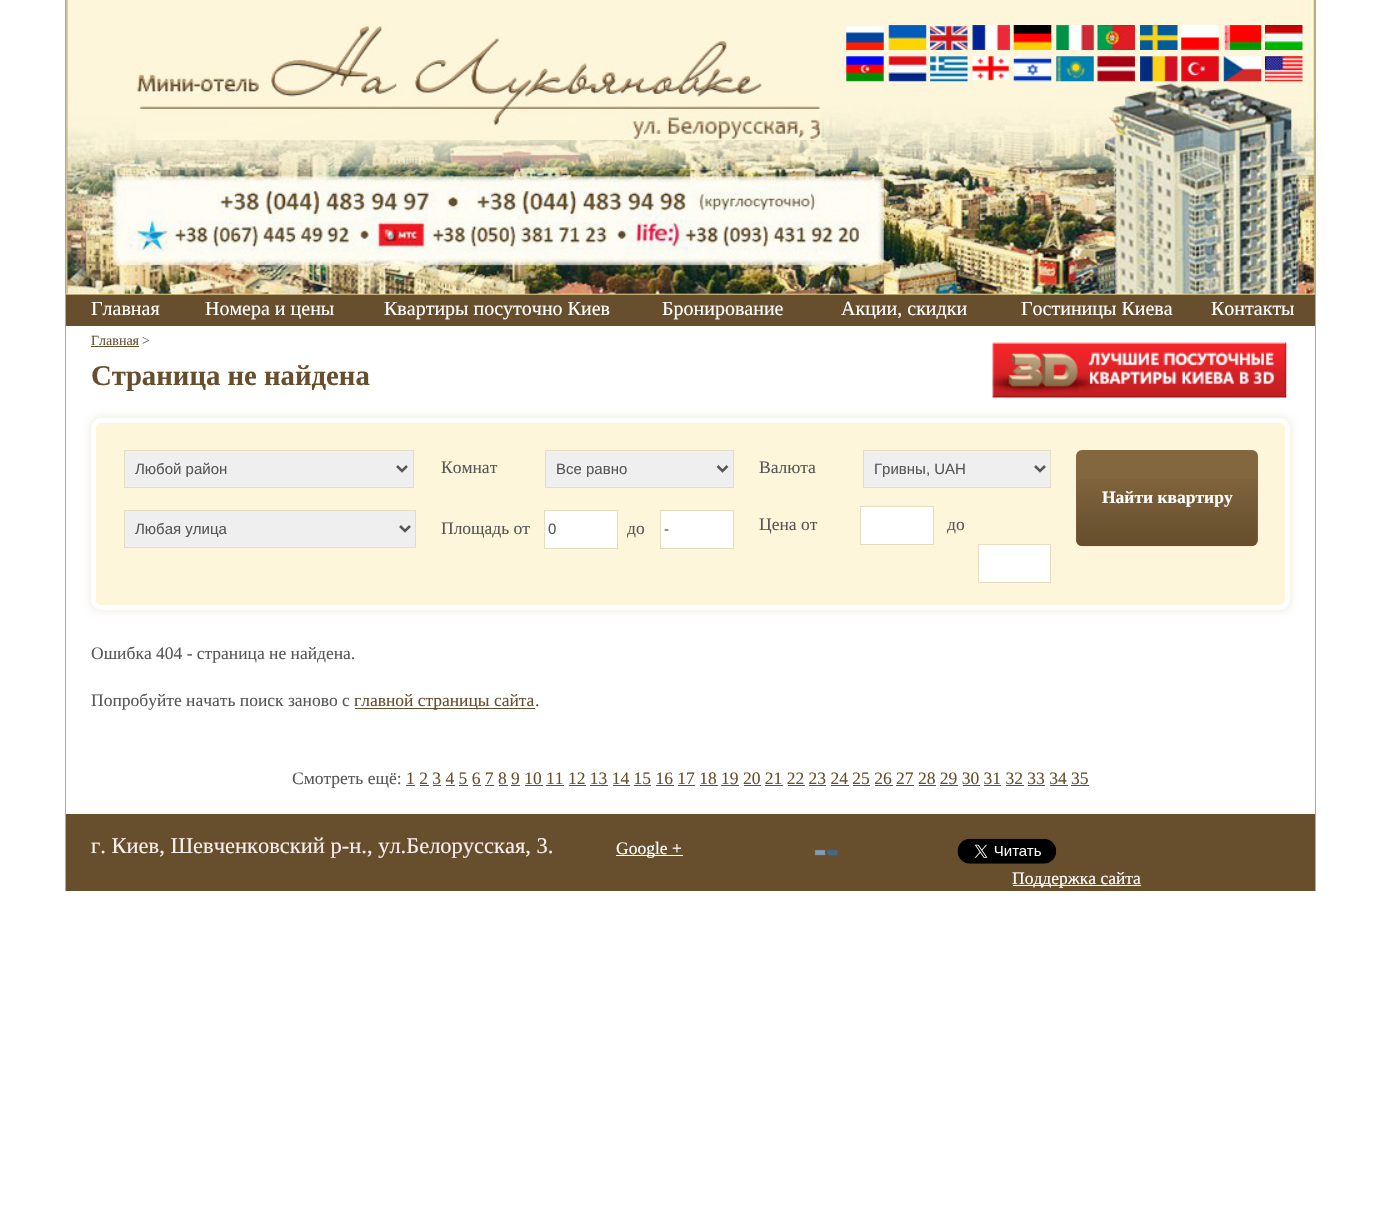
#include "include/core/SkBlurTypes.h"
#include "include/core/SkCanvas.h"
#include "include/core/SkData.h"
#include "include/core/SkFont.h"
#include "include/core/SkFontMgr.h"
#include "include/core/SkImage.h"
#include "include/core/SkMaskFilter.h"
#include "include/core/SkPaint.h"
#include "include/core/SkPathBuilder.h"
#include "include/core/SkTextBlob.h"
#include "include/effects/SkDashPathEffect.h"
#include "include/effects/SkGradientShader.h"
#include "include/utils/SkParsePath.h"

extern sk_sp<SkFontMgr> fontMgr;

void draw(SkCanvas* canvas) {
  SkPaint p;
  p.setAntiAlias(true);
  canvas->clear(SK_ColorWHITE);
  p.setColor(SkColorSetRGB(192, 170, 113));
  canvas->drawRect(SkRect::MakeLTRB(1315, 0, 1316, 891), p);
  canvas->drawRect(SkRect::MakeLTRB(65, 0, 66, 891), p);
  canvas->drawImageRect(SkImages::DeferredFromEncodedData(SkData::MakeFromFileName("images/1.png")), SkRect::MakeLTRB(66, 0, 1315, 294), SkSamplingOptions());
  canvas->drawImageRect(SkImages::DeferredFromEncodedData(SkData::MakeFromFileName("images/2.png")), SkRect::MakeLTRB(136, 26, 822, 140), SkSamplingOptions());
  canvas->drawImageRect(SkImages::DeferredFromEncodedData(SkData::MakeFromFileName("images/3.png")), SkRect::MakeLTRB(846, 26, 884, 50), SkSamplingOptions());
  canvas->drawImageRect(SkImages::DeferredFromEncodedData(SkData::MakeFromFileName("images/4.png")), SkRect::MakeLTRB(888, 25, 927, 50), SkSamplingOptions());
  canvas->drawImageRect(SkImages::DeferredFromEncodedData(SkData::MakeFromFileName("images/5.png")), SkRect::MakeLTRB(930, 26, 968, 50), SkSamplingOptions());
  canvas->drawImageRect(SkImages::DeferredFromEncodedData(SkData::MakeFromFileName("images/6.png")), SkRect::MakeLTRB(972, 25, 1010, 50), SkSamplingOptions());
  canvas->drawImageRect(SkImages::DeferredFromEncodedData(SkData::MakeFromFileName("images/7.png")), SkRect::MakeLTRB(1013, 25, 1052, 50), SkSamplingOptions());
  canvas->drawImageRect(SkImages::DeferredFromEncodedData(SkData::MakeFromFileName("images/8.png")), SkRect::MakeLTRB(1056, 25, 1094, 50), SkSamplingOptions());
  canvas->drawImageRect(SkImages::DeferredFromEncodedData(SkData::MakeFromFileName("images/9.png")), SkRect::MakeLTRB(1097, 25, 1135, 50), SkSamplingOptions());
  canvas->drawImageRect(SkImages::DeferredFromEncodedData(SkData::MakeFromFileName("images/10.png")), SkRect::MakeLTRB(1140, 25, 1178, 50), SkSamplingOptions());
  canvas->drawImageRect(SkImages::DeferredFromEncodedData(SkData::MakeFromFileName("images/11.png")), SkRect::MakeLTRB(1181, 25, 1219, 50), SkSamplingOptions());
  canvas->drawImageRect(SkImages::DeferredFromEncodedData(SkData::MakeFromFileName("images/12.png")), SkRect::MakeLTRB(1223, 25, 1262, 50), SkSamplingOptions());
  canvas->drawImageRect(SkImages::DeferredFromEncodedData(SkData::MakeFromFileName("images/13.png")), SkRect::MakeLTRB(1265, 25, 1303, 50), SkSamplingOptions());
  canvas->drawImageRect(SkImages::DeferredFromEncodedData(SkData::MakeFromFileName("images/14.png")), SkRect::MakeLTRB(846, 56, 884, 82), SkSamplingOptions());
  canvas->drawImageRect(SkImages::DeferredFromEncodedData(SkData::MakeFromFileName("images/15.png")), SkRect::MakeLTRB(888, 56, 927, 82), SkSamplingOptions());
  canvas->drawImageRect(SkImages::DeferredFromEncodedData(SkData::MakeFromFileName("images/16.png")), SkRect::MakeLTRB(930, 56, 968, 82), SkSamplingOptions());
  canvas->drawImageRect(SkImages::DeferredFromEncodedData(SkData::MakeFromFileName("images/17.png")), SkRect::MakeLTRB(972, 56, 1009, 81), SkSamplingOptions());
  canvas->drawImageRect(SkImages::DeferredFromEncodedData(SkData::MakeFromFileName("images/18.png")), SkRect::MakeLTRB(1013, 56, 1052, 82), SkSamplingOptions());
  canvas->drawImageRect(SkImages::DeferredFromEncodedData(SkData::MakeFromFileName("images/19.png")), SkRect::MakeLTRB(1056, 56, 1094, 82), SkSamplingOptions());
  canvas->drawImageRect(SkImages::DeferredFromEncodedData(SkData::MakeFromFileName("images/20.png")), SkRect::MakeLTRB(1097, 56, 1135, 82), SkSamplingOptions());
  canvas->drawImageRect(SkImages::DeferredFromEncodedData(SkData::MakeFromFileName("images/21.png")), SkRect::MakeLTRB(1140, 56, 1178, 82), SkSamplingOptions());
  canvas->drawImageRect(SkImages::DeferredFromEncodedData(SkData::MakeFromFileName("images/22.png")), SkRect::MakeLTRB(1181, 56, 1219, 82), SkSamplingOptions());
  canvas->drawImageRect(SkImages::DeferredFromEncodedData(SkData::MakeFromFileName("images/23.png")), SkRect::MakeLTRB(1223, 56, 1262, 82), SkSamplingOptions());
  canvas->drawImageRect(SkImages::DeferredFromEncodedData(SkData::MakeFromFileName("images/24.png")), SkRect::MakeLTRB(1265, 56, 1303, 82), SkSamplingOptions());
  canvas->drawRect(SkRect::MakeLTRB(66, 294, 1315, 295), p);
  p.setColor(SkColorSetRGB(103, 79, 45));
  canvas->drawRect(SkRect::MakeLTRB(66, 295, 804, 326), p);
  canvas->drawRect(SkRect::MakeLTRB(804, 295, 1315, 326), p);
  canvas->drawRect(SkRect::MakeLTRB(91, 346, 139, 347), p);
  canvas->drawImageRect(SkImages::DeferredFromEncodedData(SkData::MakeFromFileName("images/25.png")), SkRect::MakeLTRB(992, 342, 1287, 398), SkSamplingOptions());
  p.setColor(SkColorSetRGB(237, 231, 217));
  p.setMaskFilter(SkMaskFilter::MakeBlur(kNormal_SkBlurStyle, 4.5f));
  canvas->drawRoundRect(SkRect::MakeLTRB(91, 418, 1290, 610), 10, 10, p);
  p.setMaskFilter(nullptr);
  p.setColor(SkColorSetRGB(253, 246, 218));
  canvas->drawRoundRect(SkRect::MakeLTRB(93.5f, 420.5f, 1287.5f, 607.5f), 7.5f, 7.5f, p);
  p.setStyle(SkPaint::kStroke_Style);
  p.setStrokeWidth(5);
  p.setColor(SK_ColorWHITE);
  canvas->drawRoundRect(SkRect::MakeLTRB(93.5f, 420.5f, 1287.5f, 607.5f), 7.5f, 7.5f, p);
  p.setStyle(SkPaint::kFill_Style);
  p.setColor(SkColorSetRGB(239, 239, 239));
  canvas->drawRect(SkRect::MakeLTRB(124.5f, 450.5f, 413.5f, 487.5f), p);
  p.setStyle(SkPaint::kStroke_Style);
  p.setStrokeWidth(1);
  p.setColor(SkColorSetRGB(229, 221, 191));
  canvas->drawRect(SkRect::MakeLTRB(124.5f, 450.5f, 413.5f, 487.5f), p);
  p.setStrokeWidth(2.5f);
  p.setColor(SkColorSetRGB(87, 87, 87));
  canvas->drawPath(SkPathBuilder().moveTo(397, 466).lineTo(402, 471).lineTo(407, 466).detach(), p);
  p.setStyle(SkPaint::kFill_Style);
  p.setColor(SkColorSetRGB(239, 239, 239));
  canvas->drawRect(SkRect::MakeLTRB(124.5f, 510.5f, 415.5f, 547.5f), p);
  p.setStyle(SkPaint::kStroke_Style);
  p.setStrokeWidth(1);
  p.setColor(SkColorSetRGB(229, 221, 191));
  canvas->drawRect(SkRect::MakeLTRB(124.5f, 510.5f, 415.5f, 547.5f), p);
  p.setStrokeWidth(2.5f);
  p.setColor(SkColorSetRGB(87, 87, 87));
  canvas->drawPath(SkPathBuilder().moveTo(400, 526).lineTo(405, 531).lineTo(410, 526).detach(), p);
  p.setStyle(SkPaint::kFill_Style);
  p.setColor(SkColorSetRGB(239, 239, 239));
  canvas->drawRect(SkRect::MakeLTRB(545.5f, 450.5f, 733.5f, 487.5f), p);
  p.setStyle(SkPaint::kStroke_Style);
  p.setStrokeWidth(1);
  p.setColor(SkColorSetRGB(229, 221, 191));
  canvas->drawRect(SkRect::MakeLTRB(545.5f, 450.5f, 733.5f, 487.5f), p);
  p.setStrokeWidth(2.5f);
  p.setColor(SkColorSetRGB(87, 87, 87));
  canvas->drawPath(SkPathBuilder().moveTo(717.5f, 466).lineTo(722.5f, 471).lineTo(727.5f, 466).detach(), p);
  p.setStyle(SkPaint::kFill_Style);
  p.setColor(SK_ColorWHITE);
  canvas->drawRect(SkRect::MakeLTRB(544.5f, 510.5f, 617.5f, 548.5f), p);
  p.setStyle(SkPaint::kStroke_Style);
  p.setStrokeWidth(1);
  p.setColor(SkColorSetRGB(229, 221, 191));
  canvas->drawRect(SkRect::MakeLTRB(544.5f, 510.5f, 617.5f, 548.5f), p);
  p.setStyle(SkPaint::kFill_Style);
  p.setColor(SK_ColorWHITE);
  canvas->drawRect(SkRect::MakeLTRB(660.5f, 510.5f, 733.5f, 548.5f), p);
  p.setStyle(SkPaint::kStroke_Style);
  p.setColor(SkColorSetRGB(229, 221, 191));
  canvas->drawRect(SkRect::MakeLTRB(660.5f, 510.5f, 733.5f, 548.5f), p);
  p.setStyle(SkPaint::kFill_Style);
  p.setColor(SkColorSetRGB(239, 239, 239));
  canvas->drawRect(SkRect::MakeLTRB(863.5f, 450.5f, 1050.5f, 487.5f), p);
  p.setStyle(SkPaint::kStroke_Style);
  p.setColor(SkColorSetRGB(229, 221, 191));
  canvas->drawRect(SkRect::MakeLTRB(863.5f, 450.5f, 1050.5f, 487.5f), p);
  p.setStrokeWidth(2.5f);
  p.setColor(SkColorSetRGB(87, 87, 87));
  canvas->drawPath(SkPathBuilder().moveTo(1035, 466).lineTo(1040, 471).lineTo(1045, 466).detach(), p);
  p.setStyle(SkPaint::kFill_Style);
  p.setColor(SK_ColorWHITE);
  canvas->drawRect(SkRect::MakeLTRB(860.5f, 506.5f, 933.5f, 544.5f), p);
  p.setStyle(SkPaint::kStroke_Style);
  p.setStrokeWidth(1);
  p.setColor(SkColorSetRGB(229, 221, 191));
  canvas->drawRect(SkRect::MakeLTRB(860.5f, 506.5f, 933.5f, 544.5f), p);
  p.setStyle(SkPaint::kFill_Style);
  p.setColor(SK_ColorWHITE);
  canvas->drawRect(SkRect::MakeLTRB(978.5f, 544.5f, 1050.5f, 582.5f), p);
  p.setStyle(SkPaint::kStroke_Style);
  p.setColor(SkColorSetRGB(229, 221, 191));
  canvas->drawRect(SkRect::MakeLTRB(978.5f, 544.5f, 1050.5f, 582.5f), p);
  p.setStyle(SkPaint::kFill_Style);
  p.setColor(SkColorSetRGB(131, 103, 63));
  canvas->drawRoundRect(SkRect::MakeLTRB(1076, 450, 1258, 546), 6, 6, p);
  canvas->drawImageRect(SkImages::DeferredFromEncodedData(SkData::MakeFromFileName("images/26.png")), SkRect::MakeLTRB(1076, 479, 1258, 547), SkSamplingOptions());
  p.setColor(SkColorSetRGB(103, 79, 45));
  canvas->drawRect(SkRect::MakeLTRB(355, 708, 535, 709), p);
  canvas->drawRect(SkRect::MakeLTRB(406, 785, 415, 786), p);
  canvas->drawRect(SkRect::MakeLTRB(420, 785, 429, 786), p);
  canvas->drawRect(SkRect::MakeLTRB(433, 785, 441, 786), p);
  canvas->drawRect(SkRect::MakeLTRB(446, 785, 455, 786), p);
  canvas->drawRect(SkRect::MakeLTRB(459, 785, 468, 786), p);
  canvas->drawRect(SkRect::MakeLTRB(473, 785, 481, 786), p);
  canvas->drawRect(SkRect::MakeLTRB(485, 785, 494, 786), p);
  canvas->drawRect(SkRect::MakeLTRB(499, 785, 508, 786), p);
  canvas->drawRect(SkRect::MakeLTRB(511, 785, 520, 786), p);
  canvas->drawRect(SkRect::MakeLTRB(525, 785, 543, 786), p);
  canvas->drawRect(SkRect::MakeLTRB(546, 785, 564, 786), p);
  canvas->drawRect(SkRect::MakeLTRB(569, 785, 586, 786), p);
  canvas->drawRect(SkRect::MakeLTRB(590, 785, 608, 786), p);
  canvas->drawRect(SkRect::MakeLTRB(613, 785, 630, 786), p);
  canvas->drawRect(SkRect::MakeLTRB(634, 785, 651, 786), p);
  canvas->drawRect(SkRect::MakeLTRB(656, 785, 674, 786), p);
  canvas->drawRect(SkRect::MakeLTRB(678, 785, 695, 786), p);
  canvas->drawRect(SkRect::MakeLTRB(700, 785, 718, 786), p);
  canvas->drawRect(SkRect::MakeLTRB(721, 785, 739, 786), p);
  canvas->drawRect(SkRect::MakeLTRB(744, 785, 761, 786), p);
  canvas->drawRect(SkRect::MakeLTRB(765, 785, 783, 786), p);
  canvas->drawRect(SkRect::MakeLTRB(788, 785, 805, 786), p);
  canvas->drawRect(SkRect::MakeLTRB(809, 785, 826, 786), p);
  canvas->drawRect(SkRect::MakeLTRB(831, 785, 849, 786), p);
  canvas->drawRect(SkRect::MakeLTRB(853, 785, 870, 786), p);
  canvas->drawRect(SkRect::MakeLTRB(875, 785, 893, 786), p);
  canvas->drawRect(SkRect::MakeLTRB(896, 785, 914, 786), p);
  canvas->drawRect(SkRect::MakeLTRB(919, 785, 936, 786), p);
  canvas->drawRect(SkRect::MakeLTRB(940, 785, 958, 786), p);
  canvas->drawRect(SkRect::MakeLTRB(963, 785, 980, 786), p);
  canvas->drawRect(SkRect::MakeLTRB(984, 785, 1001, 786), p);
  canvas->drawRect(SkRect::MakeLTRB(1006, 785, 1024, 786), p);
  canvas->drawRect(SkRect::MakeLTRB(1028, 785, 1045, 786), p);
  canvas->drawRect(SkRect::MakeLTRB(1050, 785, 1068, 786), p);
  canvas->drawRect(SkRect::MakeLTRB(1071, 785, 1089, 786), p);
  canvas->drawRect(SkRect::MakeLTRB(66, 814, 1315, 891), p);
  p.setColor(SK_ColorWHITE);
  canvas->drawRect(SkRect::MakeLTRB(616, 855, 683, 856), p);
  canvas->drawImageRect(SkImages::DeferredFromEncodedData(SkData::MakeFromFileName("images/27.png")), SkRect::MakeLTRB(814, 849, 838, 856), SkSamplingOptions());
  canvas->drawImageRect(SkImages::DeferredFromEncodedData(SkData::MakeFromFileName("images/28.png")), SkRect::MakeLTRB(957, 838, 1057, 864), SkSamplingOptions());
  canvas->drawRect(SkRect::MakeLTRB(1013, 885, 1141, 886), p);
  SkFont font1(fontMgr->matchFamilyStyle("Liberation Serif", SkFontStyle::Normal()), 20);
  font1.setSubpixel(true);
  canvas->drawString("Главная", 91, 315, font1, p);
  canvas->drawString("Номера и цены", 205, 315, font1, p);
  canvas->drawString("Квартиры посуточно Киев", 384, 315, font1, p);
  canvas->drawString("Бронирование", 662, 315, font1, p);
  canvas->drawString("Акции, скидки", 841, 315, font1, p);
  canvas->drawString("Гостиницы Киева", 1021, 315, font1, p);
  canvas->drawString("Контакты", 1211, 315, font1, p);
  SkFont font2(fontMgr->matchFamilyStyle("Liberation Serif", SkFontStyle::Normal()), 14);
  font2.setSubpixel(true);
  p.setColor(SkColorSetRGB(103, 79, 45));
  canvas->drawString("Главная", 91, 345, font2, p);
  p.setColor(SkColorSetRGB(87, 87, 87));
  canvas->drawString(">", 142, 345, font2, p);
  SkFont font3(fontMgr->matchFamilyStyle("Liberation Serif", SkFontStyle::Bold()), 28.75f);
  font3.setSubpixel(true);
  p.setColor(SkColorSetRGB(103, 79, 45));
  canvas->drawString("Cтраница не найдена", 91, 385, font3, p);
  SkFont font4(fontMgr->matchFamilyStyle("Liberation Sans", SkFontStyle::Normal()), 15);
  font4.setSubpixel(true);
  p.setColor(SkColorSetRGB(87, 87, 87));
  canvas->drawString("Любой район", 135, 474, font4, p);
  canvas->drawString("Любая улица", 135, 534, font4, p);
  SkFont font5(fontMgr->matchFamilyStyle("Liberation Serif", SkFontStyle::Normal()), 17.5f);
  font5.setSubpixel(true);
  canvas->drawString("Комнат", 441, 473, font5, p);
  canvas->drawString("Все равно", 556, 474, font4, p);
  canvas->drawString("Площадь от", 441, 534, font5, p);
  canvas->drawString("0", 548, 534, font4, p);
  canvas->drawString("до", 627, 534, font5, p);
  canvas->drawString("-", 664, 534, font4, p);
  canvas->drawString("Валюта", 759, 473, font5, p);
  canvas->drawString("Гривны, UAH", 874, 474, font4, p);
  canvas->drawString("Цена от", 759, 530, font5, p);
  canvas->drawString("до", 947, 530, font5, p);
  SkFont font6(fontMgr->matchFamilyStyle("Liberation Serif", SkFontStyle::Bold()), 17.5f);
  font6.setSubpixel(true);
  p.setColor(SK_ColorWHITE);
  canvas->drawString("Найти квартиру", 1102, 503, font6, p);
  p.setColor(SkColorSetRGB(87, 87, 87));
  canvas->drawString("Ошибка 404 - страница не найдена.", 91, 659, font5, p);
  canvas->drawString("Попробуйте начать поиск заново с", 91, 706, font5, p);
  p.setColor(SkColorSetRGB(103, 79, 45));
  canvas->drawString("главной страницы сайта", 354, 706, font5, p);
  p.setColor(SkColorSetRGB(87, 87, 87));
  canvas->drawString(".", 535, 706, font5, p);
  canvas->drawString("Смотреть ещё:", 292, 784, font5, p);
  p.setColor(SkColorSetRGB(103, 79, 45));
  canvas->drawString("1 2 3 4 5 6 7 8 9 10 11 12 13 14 15 16 17 18 19 20 21 22 23 24 25 26 27 28 29 30 31 32 33 34 35", 406, 784, font5, p);
  SkFont font7(fontMgr->matchFamilyStyle("Liberation Serif", SkFontStyle::Normal()), 22.5f);
  font7.setSubpixel(true);
  p.setColor(SkColorSetRGB(248, 238, 237));
  canvas->drawString("г. Киев, Шевченковский р-н., ул.Белорусская, 3.", 91, 853, font7, p);
  p.setColor(SK_ColorWHITE);
  canvas->drawString("Google +", 616, 854, font5, p);
  canvas->drawString("Поддержка сайта", 1012, 884, font5, p);
}
